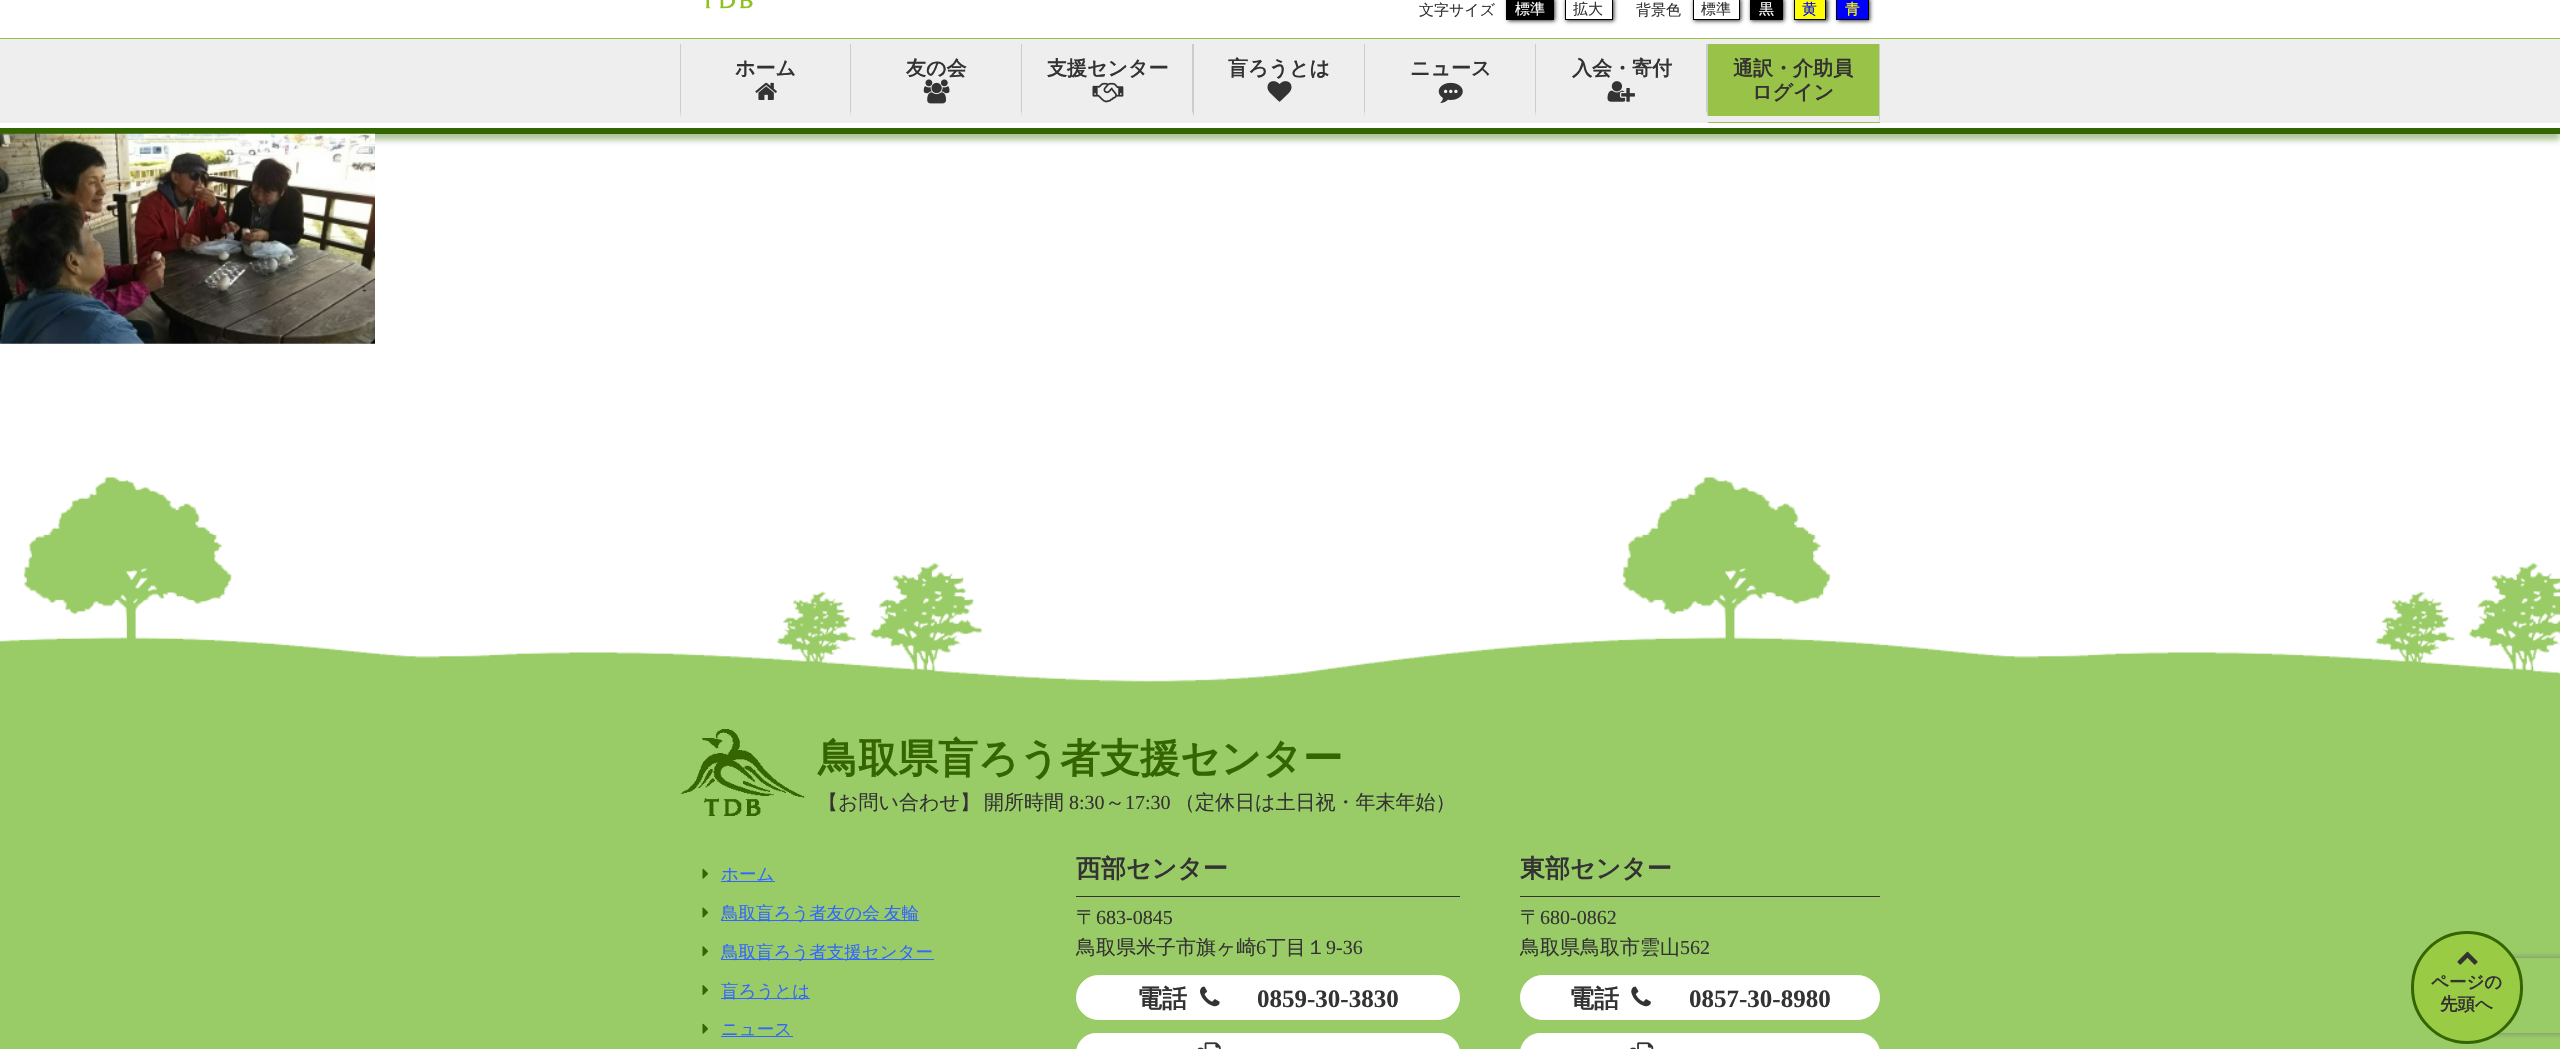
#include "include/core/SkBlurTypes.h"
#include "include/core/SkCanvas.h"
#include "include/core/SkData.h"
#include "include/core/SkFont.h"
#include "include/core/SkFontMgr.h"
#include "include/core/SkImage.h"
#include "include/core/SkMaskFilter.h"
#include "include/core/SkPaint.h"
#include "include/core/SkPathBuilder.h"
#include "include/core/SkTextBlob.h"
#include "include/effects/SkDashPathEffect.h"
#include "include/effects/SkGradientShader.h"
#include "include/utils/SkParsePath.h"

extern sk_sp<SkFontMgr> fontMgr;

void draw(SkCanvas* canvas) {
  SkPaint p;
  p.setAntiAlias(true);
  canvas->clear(SK_ColorWHITE);
  p.setColor(SkColorSetARGB(102, 51, 102, 0));
  p.setMaskFilter(SkMaskFilter::MakeBlur(kNormal_SkBlurStyle, 3));
  canvas->drawRect(SkRect::MakeLTRB(0, -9, 2560, 140), p);
  p.setMaskFilter(nullptr);
  p.setColor(SK_ColorWHITE);
  canvas->drawRect(SkRect::MakeLTRB(0, 0, 2560, 128), p);
  p.setColor(SkColorSetRGB(51, 102, 0));
  canvas->drawRect(SkRect::MakeLTRB(0, 128, 2560, 134), p);
  canvas->drawImageRect(SkImages::DeferredFromEncodedData(SkData::MakeFromFileName("images/1.png")), SkRect::MakeLTRB(705, 0, 753, 9), SkSamplingOptions());
  p.setColor(SkColorSetRGB(51, 51, 51));
  p.setMaskFilter(SkMaskFilter::MakeBlur(kNormal_SkBlurStyle, 2));
  canvas->drawRect(SkRect::MakeLTRB(1508, -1, 1555, 21), p);
  p.setMaskFilter(nullptr);
  p.setColor(SK_ColorBLACK);
  canvas->drawRect(SkRect::MakeLTRB(1506, 0, 1554, 20), p);
  p.setColor(SkColorSetRGB(51, 51, 51));
  p.setMaskFilter(SkMaskFilter::MakeBlur(kNormal_SkBlurStyle, 2));
  canvas->drawRect(SkRect::MakeLTRB(1566, -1, 1614, 21), p);
  p.setMaskFilter(nullptr);
  p.setColor(SK_ColorWHITE);
  canvas->drawRect(SkRect::MakeLTRB(1565.5f, -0.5f, 1612.5f, 19.5f), p);
  p.setStyle(SkPaint::kStroke_Style);
  p.setStrokeWidth(1);
  p.setColor(SK_ColorBLACK);
  canvas->drawRect(SkRect::MakeLTRB(1565.5f, -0.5f, 1612.5f, 19.5f), p);
  canvas->save();
  canvas->clipPath(SkPathBuilder(SkPathFillType::kEvenOdd).moveTo(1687, 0).lineTo(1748, 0).lineTo(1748, 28).lineTo(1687, 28).close().moveTo(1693, -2).lineTo(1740, -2).lineTo(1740, 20).lineTo(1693, 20).close().detach(), true);
  p.setStyle(SkPaint::kFill_Style);
  p.setColor(SkColorSetRGB(51, 51, 51));
  p.setMaskFilter(SkMaskFilter::MakeBlur(kNormal_SkBlurStyle, 2));
  canvas->drawRect(SkRect::MakeLTRB(1694, -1, 1741, 21), p);
  p.setMaskFilter(nullptr);
  canvas->restore();
  p.setStyle(SkPaint::kStroke_Style);
  p.setColor(SK_ColorBLACK);
  canvas->drawRect(SkRect::MakeLTRB(1693.5f, -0.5f, 1739.5f, 19.5f), p);
  p.setStyle(SkPaint::kFill_Style);
  p.setColor(SkColorSetRGB(51, 51, 51));
  p.setMaskFilter(SkMaskFilter::MakeBlur(kNormal_SkBlurStyle, 2));
  canvas->drawRect(SkRect::MakeLTRB(1751, -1, 1784, 21), p);
  p.setMaskFilter(nullptr);
  p.setColor(SK_ColorBLACK);
  canvas->drawRect(SkRect::MakeLTRB(1750, 0, 1783, 20), p);
  p.setColor(SkColorSetRGB(51, 51, 51));
  p.setMaskFilter(SkMaskFilter::MakeBlur(kNormal_SkBlurStyle, 2));
  canvas->drawRect(SkRect::MakeLTRB(1795, -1, 1828, 21), p);
  p.setMaskFilter(nullptr);
  p.setColor(SkColorSetRGB(255, 255, 0));
  canvas->drawRect(SkRect::MakeLTRB(1794.5f, -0.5f, 1825.5f, 19.5f), p);
  p.setStyle(SkPaint::kStroke_Style);
  p.setColor(SK_ColorBLACK);
  canvas->drawRect(SkRect::MakeLTRB(1794.5f, -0.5f, 1825.5f, 19.5f), p);
  p.setStyle(SkPaint::kFill_Style);
  p.setColor(SkColorSetRGB(51, 51, 51));
  p.setMaskFilter(SkMaskFilter::MakeBlur(kNormal_SkBlurStyle, 2));
  canvas->drawRect(SkRect::MakeLTRB(1838, -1, 1870, 21), p);
  p.setMaskFilter(nullptr);
  p.setColor(SkColorSetRGB(0, 0, 255));
  canvas->drawRect(SkRect::MakeLTRB(1836.5f, -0.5f, 1868.5f, 19.5f), p);
  p.setStyle(SkPaint::kStroke_Style);
  p.setColor(SK_ColorBLACK);
  canvas->drawRect(SkRect::MakeLTRB(1836.5f, -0.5f, 1868.5f, 19.5f), p);
  p.setStyle(SkPaint::kFill_Style);
  p.setColor(SkColorSetRGB(238, 238, 238));
  canvas->drawRect(SkRect::MakeLTRB(0, 39, 2560, 123), p);
  p.setColor(SkColorSetRGB(153, 195, 72));
  canvas->drawRect(SkRect::MakeLTRB(0, 38, 2560, 39), p);
  p.setColor(SkColorSetRGB(204, 204, 204));
  canvas->drawPath(SkPathBuilder().moveTo(851, 44).lineTo(851, 118).lineTo(850, 111).lineTo(850, 44).close().detach(), p);
  p.setColor(SkColorSetRGB(238, 238, 238));
  canvas->drawPath(SkPathBuilder().moveTo(851, 118).lineTo(680, 118).lineTo(681, 111).lineTo(850, 111).close().detach(), p);
  p.setColor(SkColorSetRGB(204, 204, 204));
  canvas->drawPath(SkPathBuilder().moveTo(680, 118).lineTo(680, 44).lineTo(681, 44).lineTo(681, 111).close().detach(), p);
  canvas->drawImageRect(SkImages::DeferredFromEncodedData(SkData::MakeFromFileName("images/2.png")), SkRect::MakeLTRB(755, 82, 777, 100), SkSamplingOptions());
  canvas->drawPath(SkPathBuilder().moveTo(1022, 44).lineTo(1022, 118).lineTo(1021, 111).lineTo(1021, 44).close().detach(), p);
  p.setColor(SkColorSetRGB(238, 238, 238));
  canvas->drawPath(SkPathBuilder().moveTo(1022, 118).lineTo(851, 118).lineTo(851, 111).lineTo(1021, 111).close().detach(), p);
  canvas->drawImageRect(SkImages::DeferredFromEncodedData(SkData::MakeFromFileName("images/3.png")), SkRect::MakeLTRB(923, 79, 950, 104), SkSamplingOptions());
  p.setColor(SkColorSetRGB(204, 204, 204));
  canvas->drawPath(SkPathBuilder().moveTo(1194, 44).lineTo(1194, 118).lineTo(1192, 111).lineTo(1192, 44).close().detach(), p);
  p.setColor(SkColorSetRGB(238, 238, 238));
  canvas->drawPath(SkPathBuilder().moveTo(1194, 118).lineTo(1022, 118).lineTo(1022, 111).lineTo(1192, 111).close().detach(), p);
  canvas->drawImageRect(SkImages::DeferredFromEncodedData(SkData::MakeFromFileName("images/4.png")), SkRect::MakeLTRB(1092, 82, 1124, 103), SkSamplingOptions());
  p.setColor(SkColorSetRGB(204, 204, 204));
  canvas->drawPath(SkPathBuilder().moveTo(1365, 44).lineTo(1365, 118).lineTo(1364, 111).lineTo(1364, 44).close().detach(), p);
  p.setColor(SkColorSetRGB(238, 238, 238));
  canvas->drawPath(SkPathBuilder().moveTo(1365, 118).lineTo(1194, 118).lineTo(1194, 111).lineTo(1364, 111).close().detach(), p);
  canvas->drawImageRect(SkImages::DeferredFromEncodedData(SkData::MakeFromFileName("images/5.png")), SkRect::MakeLTRB(1267, 81, 1292, 102), SkSamplingOptions());
  p.setColor(SkColorSetRGB(204, 204, 204));
  canvas->drawPath(SkPathBuilder().moveTo(1536, 44).lineTo(1536, 118).lineTo(1535, 111).lineTo(1535, 44).close().detach(), p);
  p.setColor(SkColorSetRGB(238, 238, 238));
  canvas->drawPath(SkPathBuilder().moveTo(1536, 118).lineTo(1365, 118).lineTo(1365, 111).lineTo(1535, 111).close().detach(), p);
  canvas->drawImageRect(SkImages::DeferredFromEncodedData(SkData::MakeFromFileName("images/6.png")), SkRect::MakeLTRB(1438, 82, 1463, 103), SkSamplingOptions());
  p.setColor(SkColorSetRGB(204, 204, 204));
  canvas->drawPath(SkPathBuilder().moveTo(1708, 44).lineTo(1708, 118).lineTo(1706, 111).lineTo(1706, 44).close().detach(), p);
  p.setColor(SkColorSetRGB(238, 238, 238));
  canvas->drawPath(SkPathBuilder().moveTo(1708, 118).lineTo(1536, 118).lineTo(1536, 111).lineTo(1706, 111).close().detach(), p);
  canvas->drawImageRect(SkImages::DeferredFromEncodedData(SkData::MakeFromFileName("images/7.png")), SkRect::MakeLTRB(1607, 81, 1635, 102), SkSamplingOptions());
  p.setColor(SkColorSetRGB(153, 194, 72));
  canvas->drawRect(SkRect::MakeLTRB(1708, 44, 1880, 123), p);
  p.setColor(SkColorSetRGB(204, 204, 204));
  canvas->drawPath(SkPathBuilder().moveTo(1880, 44).lineTo(1880, 122).lineTo(1879, 116).lineTo(1879, 44).close().detach(), p);
  p.setColor(SkColorSetRGB(238, 238, 238));
  canvas->drawPath(SkPathBuilder().moveTo(1880, 122).lineTo(1708, 122).lineTo(1708, 116).lineTo(1879, 116).close().detach(), p);
  canvas->drawImageRect(SkImages::DeferredFromEncodedData(SkData::MakeFromFileName("images/8.png")), SkRect::MakeLTRB(0, 133, 375, 344), SkSamplingOptions());
  canvas->drawImageRect(SkImages::DeferredFromEncodedData(SkData::MakeFromFileName("images/9.png")), SkRect::MakeLTRB(0, 477, 2560, 1049), SkSamplingOptions());
  canvas->drawImageRect(SkImages::DeferredFromEncodedData(SkData::MakeFromFileName("images/10.png")), SkRect::MakeLTRB(680, 729, 805, 816), SkSamplingOptions());
  canvas->drawImageRect(SkImages::DeferredFromEncodedData(SkData::MakeFromFileName("images/11.png")), SkRect::MakeLTRB(702, 868, 708, 879), SkSamplingOptions());
  p.setColor(SkColorSetRGB(51, 102, 255));
  canvas->drawRect(SkRect::MakeLTRB(721, 881, 775, 882), p);
  canvas->drawImageRect(SkImages::DeferredFromEncodedData(SkData::MakeFromFileName("images/12.png")), SkRect::MakeLTRB(702, 907, 708, 918), SkSamplingOptions());
  canvas->drawRect(SkRect::MakeLTRB(721, 920, 919, 921), p);
  canvas->drawImageRect(SkImages::DeferredFromEncodedData(SkData::MakeFromFileName("images/13.png")), SkRect::MakeLTRB(702, 946, 708, 957), SkSamplingOptions());
  canvas->drawRect(SkRect::MakeLTRB(721, 959, 934, 960), p);
  canvas->drawImageRect(SkImages::DeferredFromEncodedData(SkData::MakeFromFileName("images/14.png")), SkRect::MakeLTRB(702, 985, 708, 995), SkSamplingOptions());
  canvas->drawRect(SkRect::MakeLTRB(721, 998, 810, 999), p);
  canvas->drawImageRect(SkImages::DeferredFromEncodedData(SkData::MakeFromFileName("images/11.png")), SkRect::MakeLTRB(702, 1023, 708, 1034), SkSamplingOptions());
  canvas->drawRect(SkRect::MakeLTRB(721, 1036, 793, 1037), p);
  p.setColor(SkColorSetRGB(51, 51, 51));
  canvas->drawRect(SkRect::MakeLTRB(1076, 896, 1460, 897), p);
  p.setColor(SK_ColorWHITE);
  canvas->drawRoundRect(SkRect::MakeLTRB(1076.5f, 975.5f, 1459.5f, 1019.5f), 22, 22, p);
  p.setStyle(SkPaint::kStroke_Style);
  canvas->drawRoundRect(SkRect::MakeLTRB(1076.5f, 975.5f, 1459.5f, 1019.5f), 22, 22, p);
  canvas->drawImageRect(SkImages::DeferredFromEncodedData(SkData::MakeFromFileName("images/15.png")), SkRect::MakeLTRB(1200, 986, 1220, 1007), SkSamplingOptions());
  p.setStyle(SkPaint::kFill_Style);
  canvas->drawRoundRect(SkRect::MakeLTRB(1076.5f, 1033.5f, 1459.5f, 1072.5f), 22, 22, p);
  p.setStyle(SkPaint::kStroke_Style);
  canvas->drawRoundRect(SkRect::MakeLTRB(1076.5f, 1033.5f, 1459.5f, 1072.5f), 22, 22, p);
  canvas->drawImageRect(SkImages::DeferredFromEncodedData(SkData::MakeFromFileName("images/16.png")), SkRect::MakeLTRB(1197, 1042, 1221, 1049), SkSamplingOptions());
  p.setStyle(SkPaint::kFill_Style);
  p.setColor(SkColorSetRGB(51, 51, 51));
  canvas->drawRect(SkRect::MakeLTRB(1520, 896, 1880, 897), p);
  p.setColor(SK_ColorWHITE);
  canvas->drawRoundRect(SkRect::MakeLTRB(1520.5f, 975.5f, 1879.5f, 1019.5f), 22, 22, p);
  p.setStyle(SkPaint::kStroke_Style);
  canvas->drawRoundRect(SkRect::MakeLTRB(1520.5f, 975.5f, 1879.5f, 1019.5f), 22, 22, p);
  canvas->drawImageRect(SkImages::DeferredFromEncodedData(SkData::MakeFromFileName("images/17.png")), SkRect::MakeLTRB(1631, 986, 1651, 1007), SkSamplingOptions());
  p.setStyle(SkPaint::kFill_Style);
  canvas->drawRoundRect(SkRect::MakeLTRB(1520.5f, 1033.5f, 1879.5f, 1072.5f), 22, 22, p);
  p.setStyle(SkPaint::kStroke_Style);
  canvas->drawRoundRect(SkRect::MakeLTRB(1520.5f, 1033.5f, 1879.5f, 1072.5f), 22, 22, p);
  canvas->drawImageRect(SkImages::DeferredFromEncodedData(SkData::MakeFromFileName("images/18.png")), SkRect::MakeLTRB(1630, 1042, 1654, 1049), SkSamplingOptions());
  canvas->save();
  canvas->clipPath(SkPathBuilder(SkPathFillType::kEvenOdd).moveTo(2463, 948).lineTo(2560, 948).lineTo(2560, 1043).lineTo(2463, 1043).close().moveTo(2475.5f, 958).lineTo(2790.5f, 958).cubicTo(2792, 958, 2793, 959, 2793, 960.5f).lineTo(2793, 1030.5f).cubicTo(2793, 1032, 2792, 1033, 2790.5f, 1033).lineTo(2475.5f, 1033).cubicTo(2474, 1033, 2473, 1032, 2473, 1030.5f).lineTo(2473, 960.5f).cubicTo(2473, 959, 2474, 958, 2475.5f, 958).close().detach(), true);
  p.setStyle(SkPaint::kFill_Style);
  p.setColor(SkColorSetRGB(128, 128, 128));
  p.setMaskFilter(SkMaskFilter::MakeBlur(kNormal_SkBlurStyle, 3));
  canvas->drawRoundRect(SkRect::MakeLTRB(2473, 958, 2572, 1033), 2.5f, 2.5f, p);
  p.setMaskFilter(nullptr);
  canvas->restore();
  p.setColor(SkColorSetRGB(153, 204, 68));
  canvas->drawRoundRect(SkRect::MakeLTRB(2412.5f, 932.5f, 2521.5f, 1042.5f), 54.5f, 54.5f, p);
  p.setStyle(SkPaint::kStroke_Style);
  p.setStrokeWidth(3);
  p.setColor(SkColorSetRGB(52, 101, 1));
  canvas->drawRoundRect(SkRect::MakeLTRB(2412.5f, 932.5f, 2521.5f, 1042.5f), 54.5f, 54.5f, p);
  canvas->drawImageRect(SkImages::DeferredFromEncodedData(SkData::MakeFromFileName("images/19.png")), SkRect::MakeLTRB(2457, 951, 2478, 965), SkSamplingOptions());
  SkFont font1(fontMgr->matchFamilyStyle("WenQuanYi Zen Hei", SkFontStyle(500, SkFontStyle::kNormal_Width, SkFontStyle::kUpright_Slant)), 15);
  font1.setSubpixel(true);
  p.setStyle(SkPaint::kFill_Style);
  p.setColor(SkColorSetRGB(51, 51, 51));
  canvas->drawString("文字サイズ", 1419, 15, font1, p);
  p.setColor(SK_ColorWHITE);
  canvas->drawString("標準", 1515, 14, font1, p);
  p.setColor(SkColorSetRGB(51, 51, 51));
  canvas->drawString("拡大", 1573, 14, font1, p);
  canvas->drawString("背景色", 1636, 15, font1, p);
  canvas->drawString("標準", 1701, 14, font1, p);
  p.setColor(SK_ColorWHITE);
  canvas->drawString("黒", 1759, 14, font1, p);
  p.setColor(SkColorSetRGB(0, 0, 255));
  canvas->drawString("黄", 1802, 14, font1, p);
  p.setColor(SkColorSetRGB(255, 255, 0));
  canvas->drawString("青", 1845, 14, font1, p);
  SkFont font2(fontMgr->matchFamilyStyle("WenQuanYi Zen Hei", SkFontStyle::Bold()), 20);
  font2.setSubpixel(true);
  p.setColor(SkColorSetRGB(51, 51, 51));
  canvas->drawString("ホーム", 735, 75, font2, p);
  canvas->drawString("友の会", 906, 75, font2, p);
  canvas->drawString("支援センター", 1047, 75, font2, p);
  canvas->drawString("盲ろうとは", 1228, 75, font2, p);
  canvas->drawString("ニュース", 1410, 75, font2, p);
  canvas->drawString("入会・寄付", 1572, 75, font2, p);
  canvas->drawString("通訳・介助員", 1733, 75, font2, p);
  canvas->drawString("ログイン", 1752, 99, font2, p);
  SkFont font3(fontMgr->matchFamilyStyle("WenQuanYi Zen Hei", SkFontStyle::Bold()), 40);
  font3.setSubpixel(true);
  p.setColor(SkColorSetRGB(52, 101, 1));
  canvas->drawString("鳥取県盲ろう者支援センター", 818, 772, font3, p);
  SkFont font4(fontMgr->matchFamilyStyle("WenQuanYi Zen Hei", SkFontStyle(500, SkFontStyle::kNormal_Width, SkFontStyle::kUpright_Slant)), 20);
  font4.setSubpixel(true);
  p.setColor(SkColorSetRGB(51, 51, 51));
  canvas->drawString("【お問い合わせ】", 818, 809, font4, p);
  canvas->drawString("開所時間", 984, 809, font4, p);
  SkFont font5(fontMgr->matchFamilyStyle("Liberation Serif", SkFontStyle::Normal()), 20);
  font5.setSubpixel(true);
  canvas->drawString("8:30", 1069, 809, font5, p);
  canvas->drawString("～", 1105, 809, font4, p);
  canvas->drawString("17:30", 1125, 809, font5, p);
  canvas->drawString("（定休日は土日祝・年末年始）", 1175, 809, font4, p);
  SkFont font6(fontMgr->matchFamilyStyle("WenQuanYi Zen Hei", SkFontStyle(500, SkFontStyle::kNormal_Width, SkFontStyle::kUpright_Slant)), 17.5f);
  font6.setSubpixel(true);
  p.setColor(SkColorSetRGB(51, 102, 255));
  canvas->drawString("ホーム", 721, 880, font6, p);
  canvas->drawString("鳥取盲ろう者友の会", 721, 919, font6, p);
  canvas->drawString("友輪", 884, 919, font6, p);
  canvas->drawString("鳥取盲ろう者支援センター", 721, 958, font6, p);
  canvas->drawString("盲ろうとは", 721, 997, font6, p);
  canvas->drawString("ニュース", 721, 1035, font6, p);
  SkFont font7(fontMgr->matchFamilyStyle("WenQuanYi Zen Hei", SkFontStyle::Bold()), 25);
  font7.setSubpixel(true);
  p.setColor(SkColorSetRGB(51, 51, 51));
  canvas->drawString("西部センター", 1076, 877, font7, p);
  canvas->drawString("〒", 1076, 924, font4, p);
  canvas->drawString("683-0845", 1096, 924, font5, p);
  canvas->drawString("鳥取県米子市旗ヶ崎", 1076, 954, font4, p);
  canvas->drawString("6", 1256, 954, font5, p);
  canvas->drawString("丁目１", 1266, 954, font4, p);
  canvas->drawString("9-36", 1326, 954, font5, p);
  canvas->drawString("電話", 1137, 1007, font7, p);
  SkFont font8(fontMgr->matchFamilyStyle("Liberation Serif", SkFontStyle::Bold()), 25);
  font8.setSubpixel(true);
  canvas->drawString("0859-30-3830", 1257, 1007, font8, p);
  canvas->drawString("東部センター", 1520, 877, font7, p);
  canvas->drawString("〒", 1520, 924, font4, p);
  canvas->drawString("680-0862", 1540, 924, font5, p);
  canvas->drawString("鳥取県鳥取市雲山", 1520, 954, font4, p);
  canvas->drawString("562", 1680, 954, font5, p);
  canvas->drawString("電話", 1569, 1007, font7, p);
  canvas->drawString("0857-30-8980", 1689, 1007, font8, p);
  SkFont font9(fontMgr->matchFamilyStyle("WenQuanYi Zen Hei", SkFontStyle::Bold()), 17.5f);
  font9.setSubpixel(true);
  canvas->drawString("ページの", 2431, 988, font9, p);
  canvas->drawString("先頭へ", 2440, 1010, font9, p);
}
